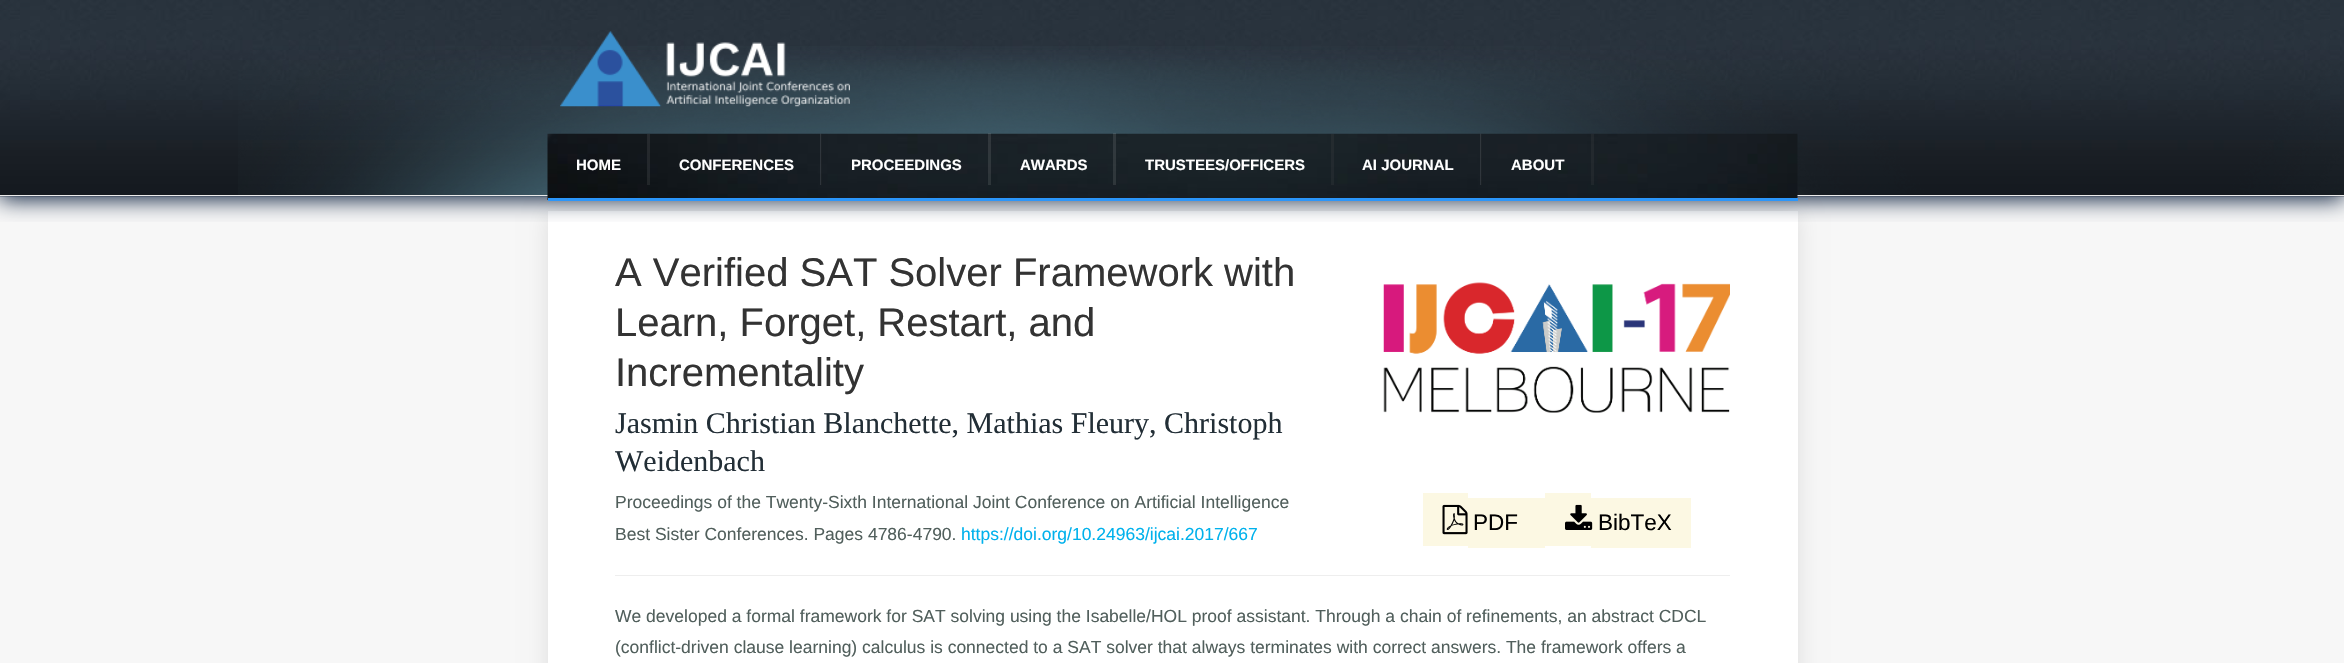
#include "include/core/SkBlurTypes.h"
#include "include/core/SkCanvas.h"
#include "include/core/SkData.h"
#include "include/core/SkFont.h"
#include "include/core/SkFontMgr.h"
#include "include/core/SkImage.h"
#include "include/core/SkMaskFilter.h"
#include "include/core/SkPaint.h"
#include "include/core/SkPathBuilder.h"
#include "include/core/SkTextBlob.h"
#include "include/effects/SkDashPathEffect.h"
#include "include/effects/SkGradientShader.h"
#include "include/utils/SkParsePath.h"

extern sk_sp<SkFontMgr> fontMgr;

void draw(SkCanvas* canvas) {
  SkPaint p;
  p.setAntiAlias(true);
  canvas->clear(SkColorSetRGB(247, 247, 247));
  canvas->drawImageRect(SkImages::DeferredFromEncodedData(SkData::MakeFromFileName("images/1.png")), SkRect::MakeLTRB(0, 0, 2344, 197), SkSamplingOptions());
  p.setColor(SkColorSetRGB(221, 221, 221));
  p.setMaskFilter(SkMaskFilter::MakeBlur(kNormal_SkBlurStyle, 11));
  canvas->drawRect(SkRect::MakeLTRB(548, 214, 1798, 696), p);
  p.setMaskFilter(nullptr);
  p.setColor(SK_ColorWHITE);
  canvas->drawRect(SkRect::MakeLTRB(548, 211, 1798, 663), p);
  canvas->save();
  canvas->clipRect(SkRect::MakeLTRB(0, 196, 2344, 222));
  p.setColor(SkColorSetRGB(2, 23, 54));
  p.setMaskFilter(SkMaskFilter::MakeBlur(kNormal_SkBlurStyle, 11));
  canvas->drawRect(SkRect::MakeLTRB(-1, 3, 2344, 199), p);
  p.setMaskFilter(nullptr);
  canvas->restore();
  canvas->drawImageRect(SkImages::DeferredFromEncodedData(SkData::MakeFromFileName("images/2.png")), SkRect::MakeLTRB(238, 46, 2344, 197), SkSamplingOptions());
  p.setColor(SkColorSetRGB(235, 235, 235));
  canvas->drawRect(SkRect::MakeLTRB(0, 195, 2344, 196), p);
  canvas->drawImageRect(SkImages::DeferredFromEncodedData(SkData::MakeFromFileName("images/3.png")), SkRect::MakeLTRB(560, 31, 850, 107), SkSamplingOptions());
  canvas->drawImageRect(SkImages::DeferredFromEncodedData(SkData::MakeFromFileName("images/4.png")), SkRect::MakeLTRB(547, 133, 1798, 200), SkSamplingOptions());
  p.setColor(SkColorSetRGB(43, 150, 250));
  canvas->drawRect(SkRect::MakeLTRB(548, 198, 1798, 201), p);
  p.setColor(SkColorSetARGB(33, 151, 151, 151));
  canvas->drawRect(SkRect::MakeLTRB(647, 134, 650, 185), p);
  canvas->drawImageRect(SkImages::DeferredFromEncodedData(SkData::MakeFromFileName("images/5.png")), SkRect::MakeLTRB(820, 133, 822, 185), SkSamplingOptions());
  p.setColor(SkColorSetARGB(28, 227, 227, 227));
  canvas->drawRect(SkRect::MakeLTRB(988, 133, 991, 185), p);
  canvas->drawRect(SkRect::MakeLTRB(1113, 133, 1116, 185), p);
  p.setColor(SkColorSetARGB(38, 87, 87, 87));
  canvas->drawRect(SkRect::MakeLTRB(1331, 134, 1334, 185), p);
  canvas->drawImageRect(SkImages::DeferredFromEncodedData(SkData::MakeFromFileName("images/6.png")), SkRect::MakeLTRB(1480, 133, 1482, 185), SkSamplingOptions());
  canvas->drawRect(SkRect::MakeLTRB(1591, 134, 1594, 185), p);
  canvas->drawImageRect(SkImages::DeferredFromEncodedData(SkData::MakeFromFileName("images/7.png")), SkRect::MakeLTRB(1383, 282, 1730, 413), SkSamplingOptions());
  p.setColor(SkColorSetRGB(252, 248, 227));
  canvas->drawRect(SkRect::MakeLTRB(1423, 493, 1468, 546), p);
  canvas->drawRect(SkRect::MakeLTRB(1468, 498, 1545, 548), p);
  canvas->drawImageRect(SkImages::DeferredFromEncodedData(SkData::MakeFromFileName("images/8.png")), SkRect::MakeLTRB(1442, 504, 1468, 535), SkSamplingOptions());
  canvas->drawRect(SkRect::MakeLTRB(1545, 493, 1591, 546), p);
  canvas->drawRect(SkRect::MakeLTRB(1591, 498, 1691, 548), p);
  canvas->drawImageRect(SkImages::DeferredFromEncodedData(SkData::MakeFromFileName("images/9.png")), SkRect::MakeLTRB(1565, 504, 1593, 530), SkSamplingOptions());
  p.setColor(SkColorSetRGB(238, 238, 238));
  canvas->drawRect(SkRect::MakeLTRB(615, 575, 1730, 576), p);
  SkFont font1(fontMgr->matchFamilyStyle("Liberation Sans", SkFontStyle::Bold()), 15);
  font1.setSubpixel(true);
  p.setColor(SK_ColorWHITE);
  canvas->drawString("HOME", 576, 170, font1, p);
  canvas->drawString("CONFERENCES", 679, 170, font1, p);
  canvas->drawString("PROCEEDINGS", 851, 170, font1, p);
  canvas->drawString("AWARDS", 1020, 170, font1, p);
  canvas->drawString("TRUSTEES/OFFICERS", 1145, 170, font1, p);
  canvas->drawString("AI JOURNAL", 1362, 170, font1, p);
  canvas->drawString("ABOUT", 1511, 170, font1, p);
  SkFont font2(fontMgr->matchFamilyStyle("Liberation Sans", SkFontStyle::Normal()), 40);
  font2.setSubpixel(true);
  p.setColor(SkColorSetRGB(51, 51, 51));
  canvas->drawString("A Verified SAT Solver Framework with", 615, 286, font2, p);
  canvas->drawString("Learn, Forget, Restart, and", 615, 336, font2, p);
  canvas->drawString("Incrementality", 615, 386, font2, p);
  SkFont font3(fontMgr->matchFamilyStyle("Liberation Serif", SkFontStyle::Normal()), 30);
  font3.setSubpixel(true);
  p.setColor(SkColorSetRGB(34, 46, 54));
  canvas->drawString("Jasmin Christian Blanchette, Mathias Fleury, Christoph", 615, 433, font3, p);
  canvas->drawString("Weidenbach", 615, 471, font3, p);
  SkFont font4(fontMgr->matchFamilyStyle("Liberation Sans", SkFontStyle::Normal()), 17.5f);
  font4.setSubpixel(true);
  p.setColor(SkColorSetRGB(81, 95, 92));
  canvas->drawString("Proceedings of the Twenty-Sixth International Joint Conference on Artificial Intelligence", 615, 508, font4, p);
  canvas->drawString("Best Sister Conferences. Pages 4786-4790.", 615, 540, font4, p);
  p.setColor(SkColorSetRGB(0, 177, 236));
  canvas->drawString("https://doi.org/10.24963/ijcai.2017/667", 961, 540, font4, p);
  SkFont font5(fontMgr->matchFamilyStyle("Liberation Sans", SkFontStyle::Normal()), 22.5f);
  font5.setSubpixel(true);
  p.setColor(SK_ColorBLACK);
  canvas->drawString("PDF", 1473, 530, font5, p);
  canvas->drawString("BibTeX", 1598, 530, font5, p);
  p.setColor(SkColorSetRGB(81, 95, 92));
  canvas->drawString("We developed a formal framework for SAT solving using the Isabelle/HOL proof assistant. Through a chain of refinements, an abstract CDCL", 615, 622, font4, p);
  canvas->drawString("(conflict-driven clause learning) calculus is connected to a SAT solver that always terminates with correct answers. The framework offers a", 615, 653, font4, p);
}
